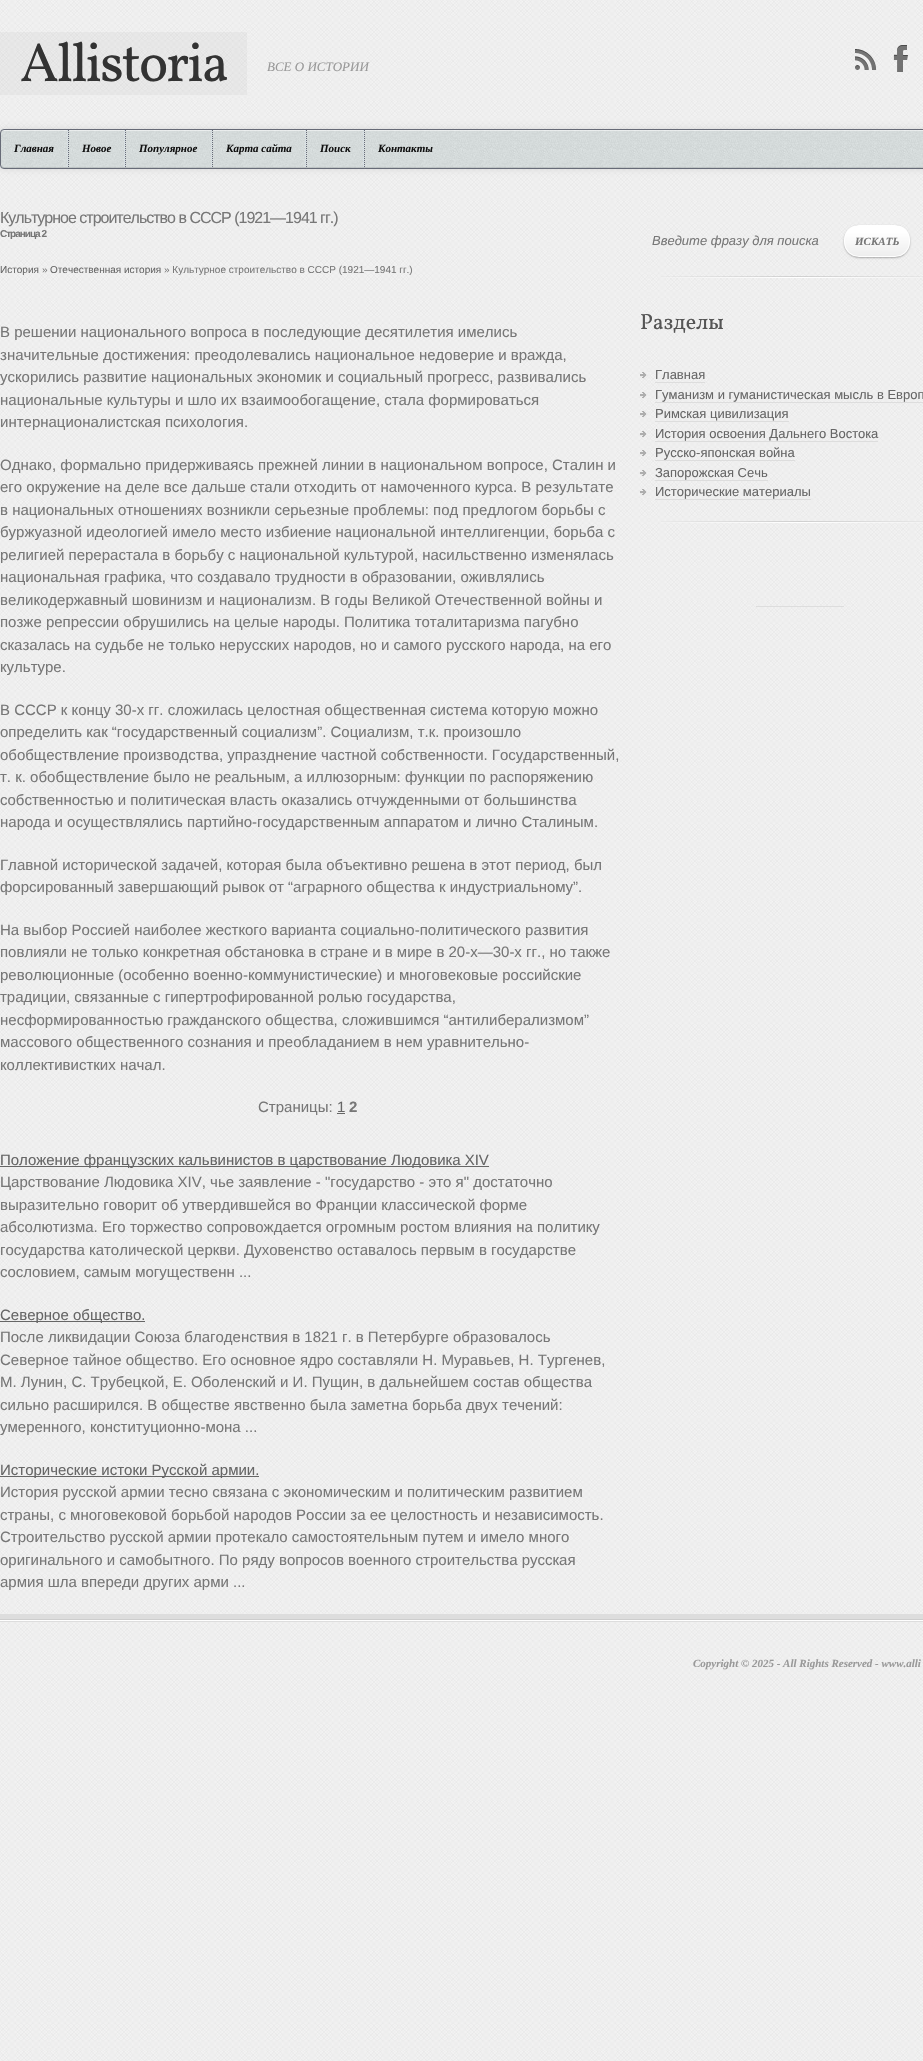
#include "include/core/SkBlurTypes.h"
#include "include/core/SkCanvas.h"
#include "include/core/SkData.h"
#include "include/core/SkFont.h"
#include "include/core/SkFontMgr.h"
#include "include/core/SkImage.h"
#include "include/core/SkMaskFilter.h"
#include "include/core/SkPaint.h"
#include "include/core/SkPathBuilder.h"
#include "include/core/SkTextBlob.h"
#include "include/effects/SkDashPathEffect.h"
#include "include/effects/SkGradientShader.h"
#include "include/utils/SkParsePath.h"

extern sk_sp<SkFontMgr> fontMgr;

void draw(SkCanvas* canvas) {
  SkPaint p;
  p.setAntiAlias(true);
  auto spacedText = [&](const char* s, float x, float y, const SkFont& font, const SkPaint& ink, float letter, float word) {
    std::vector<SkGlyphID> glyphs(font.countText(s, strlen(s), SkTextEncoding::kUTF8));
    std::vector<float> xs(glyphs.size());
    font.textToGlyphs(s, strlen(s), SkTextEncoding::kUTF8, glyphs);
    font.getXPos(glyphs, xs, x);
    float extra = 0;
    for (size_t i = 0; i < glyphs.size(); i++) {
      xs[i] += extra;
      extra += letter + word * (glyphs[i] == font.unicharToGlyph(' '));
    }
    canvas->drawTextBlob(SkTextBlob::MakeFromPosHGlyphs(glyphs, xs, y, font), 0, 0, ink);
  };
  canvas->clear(SK_ColorWHITE);
  canvas->drawImageRect(SkImages::DeferredFromEncodedData(SkData::MakeFromFileName("images/1.png")), SkRect::MakeLTRB(0, 0, 923, 2061), SkSamplingOptions());
  p.setColor(SkColorSetARGB(8, 0, 0, 0));
  canvas->drawRect(SkRect::MakeLTRB(0, 32, 247, 95), p);
  canvas->drawImageRect(SkImages::DeferredFromEncodedData(SkData::MakeFromFileName("images/2.png")), SkRect::MakeLTRB(855, 49, 877, 70), SkSamplingOptions());
  canvas->drawImageRect(SkImages::DeferredFromEncodedData(SkData::MakeFromFileName("images/3.png")), SkRect::MakeLTRB(893, 45, 908, 72), SkSamplingOptions());
  p.setColor(SkColorSetARGB(26, 0, 0, 0));
  p.setMaskFilter(SkMaskFilter::MakeBlur(kNormal_SkBlurStyle, 3));
  canvas->drawRoundRect(SkRect::MakeLTRB(0, 129, 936, 169), 4, 4, p);
  p.setMaskFilter(nullptr);
  canvas->drawImageRect(SkImages::DeferredFromEncodedData(SkData::MakeFromFileName("images/4.png")), SkRect::MakeLTRB(0, 129, 923, 169), SkSamplingOptions());
  p.setColor(SkColorSetARGB(128, 255, 255, 255));
  canvas->drawPath(SkPathBuilder().moveTo(4, 131).lineTo(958, 131).cubicTo(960, 131, 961, 132, 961, 134).cubicTo(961, 132, 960, 130, 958, 130).lineTo(4, 130).cubicTo(2, 130, 1, 132, 1, 134).cubicTo(1, 132, 2, 131, 4, 131).close().detach(), p);
  p.setColor(SkColorSetARGB(26, 0, 0, 0));
  canvas->drawPath(SkPathBuilder().moveTo(1, 164).cubicTo(1, 166, 2, 168, 4, 168).lineTo(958, 168).cubicTo(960, 168, 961, 166, 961, 164).cubicTo(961, 166, 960, 167, 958, 167).lineTo(4, 167).cubicTo(2, 167, 1, 166, 1, 164).close().detach(), p);
  p.setStyle(SkPaint::kStroke_Style);
  p.setStrokeWidth(1);
  p.setColor(SkColorSetRGB(103, 107, 119));
  canvas->drawRoundRect(SkRect::MakeLTRB(0.5f, 129.5f, 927.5f, 168.5f), 3.5f, 3.5f, p);
  p.setColor(SkColorSetRGB(218, 227, 234));
  p.setPathEffect(SkDashPathEffect::Make({{1, 1}}, 0));
  canvas->drawPath(SkPathBuilder().moveTo(67.5f, 130).lineTo(67.5f, 167).detach(), p);
  p.setPathEffect(nullptr);
  p.setPathEffect(SkDashPathEffect::Make({{1, 1}}, 0));
  canvas->drawPath(SkPathBuilder().moveTo(124.5f, 130).lineTo(124.5f, 167).detach(), p);
  p.setPathEffect(nullptr);
  p.setColor(SkColorSetRGB(103, 107, 119));
  p.setPathEffect(SkDashPathEffect::Make({{1, 1}}, 0));
  canvas->drawPath(SkPathBuilder().moveTo(68.5f, 130).lineTo(68.5f, 167).detach(), p);
  p.setPathEffect(nullptr);
  p.setColor(SkColorSetRGB(218, 227, 234));
  p.setPathEffect(SkDashPathEffect::Make({{1, 1}}, 0));
  canvas->drawPath(SkPathBuilder().moveTo(211.5f, 130).lineTo(211.5f, 167).detach(), p);
  p.setPathEffect(nullptr);
  p.setColor(SkColorSetRGB(103, 107, 119));
  p.setPathEffect(SkDashPathEffect::Make({{1, 1}}, 0));
  canvas->drawPath(SkPathBuilder().moveTo(125.5f, 130).lineTo(125.5f, 167).detach(), p);
  p.setPathEffect(nullptr);
  p.setColor(SkColorSetRGB(218, 227, 234));
  p.setPathEffect(SkDashPathEffect::Make({{1, 1}}, 0));
  canvas->drawPath(SkPathBuilder().moveTo(305.5f, 130).lineTo(305.5f, 167).detach(), p);
  p.setPathEffect(nullptr);
  p.setColor(SkColorSetRGB(103, 107, 119));
  p.setPathEffect(SkDashPathEffect::Make({{1, 1}}, 0));
  canvas->drawPath(SkPathBuilder().moveTo(212.5f, 130).lineTo(212.5f, 167).detach(), p);
  p.setPathEffect(nullptr);
  p.setColor(SkColorSetRGB(218, 227, 234));
  p.setPathEffect(SkDashPathEffect::Make({{1, 1}}, 0));
  canvas->drawPath(SkPathBuilder().moveTo(363.5f, 130).lineTo(363.5f, 167).detach(), p);
  p.setPathEffect(nullptr);
  p.setColor(SkColorSetRGB(103, 107, 119));
  p.setPathEffect(SkDashPathEffect::Make({{1, 1}}, 0));
  canvas->drawPath(SkPathBuilder().moveTo(306.5f, 130).lineTo(306.5f, 167).detach(), p);
  p.setPathEffect(nullptr);
  p.setPathEffect(SkDashPathEffect::Make({{1, 1}}, 0));
  canvas->drawPath(SkPathBuilder().moveTo(364.5f, 130).lineTo(364.5f, 167).detach(), p);
  p.setPathEffect(nullptr);
  p.setStyle(SkPaint::kFill_Style);
  p.setColor(SkColorSetRGB(102, 102, 102));
  canvas->drawRect(SkRect::MakeLTRB(337, 1113, 345, 1114), p);
  canvas->drawRect(SkRect::MakeLTRB(0, 1166, 489, 1167), p);
  canvas->drawRect(SkRect::MakeLTRB(0, 1321, 145, 1322), p);
  canvas->drawRect(SkRect::MakeLTRB(0, 1476, 259, 1477), p);
  p.setColor(SkColorSetARGB(74, 0, 0, 0));
  p.setMaskFilter(SkMaskFilter::MakeBlur(kNormal_SkBlurStyle, 1));
  canvas->drawRoundRect(SkRect::MakeLTRB(844, 226, 910, 258), 15, 15, p);
  p.setMaskFilter(nullptr);
  canvas->save();
  canvas->clipPath(SkPathBuilder().moveTo(859, 225).lineTo(895, 225).cubicTo(903.5f, 225, 910, 231.5f, 910, 240).lineTo(910, 242).cubicTo(910, 250.5f, 903.5f, 257, 895, 257).lineTo(859, 257).cubicTo(850.5f, 257, 844, 250.5f, 844, 242).lineTo(844, 240).cubicTo(844, 231.5f, 850.5f, 225, 859, 225).close().detach(), true);
  {
    const SkColor colors[] = {SK_ColorWHITE, SkColorSetRGB(238, 238, 238)};
    const float stops[] = {0.2f, 1};
    const SkPoint ends[] = {{845, 226}, {845, 256}};
    p.setShader(SkGradientShader::MakeLinear(ends, colors, stops, 2, SkTileMode::kClamp));
    p.setAlpha(255);
  }
  canvas->drawRect(SkRect::MakeLTRB(844, 226, 910, 256), p);
  canvas->restore();
  p.setStyle(SkPaint::kStroke_Style);
  p.setShader(nullptr);
  p.setColor(SK_ColorWHITE);
  canvas->drawRoundRect(SkRect::MakeLTRB(844.5f, 225.5f, 909.5f, 256.5f), 14.5f, 14.5f, p);
  canvas->drawImageRect(SkImages::DeferredFromEncodedData(SkData::MakeFromFileName("images/5.png")), SkRect::MakeLTRB(661, 276, 923, 278), SkSamplingOptions());
  canvas->drawImageRect(SkImages::DeferredFromEncodedData(SkData::MakeFromFileName("images/6.png")), SkRect::MakeLTRB(640, 372, 647, 379), SkSamplingOptions());
  p.setStyle(SkPaint::kFill_Style);
  p.setColor(SkColorSetRGB(221, 221, 221));
  canvas->drawRect(SkRect::MakeLTRB(655, 382, 705, 383), p);
  canvas->drawImageRect(SkImages::DeferredFromEncodedData(SkData::MakeFromFileName("images/7.png")), SkRect::MakeLTRB(640, 392, 647, 399), SkSamplingOptions());
  canvas->drawRect(SkRect::MakeLTRB(655, 402, 923, 403), p);
  canvas->drawImageRect(SkImages::DeferredFromEncodedData(SkData::MakeFromFileName("images/8.png")), SkRect::MakeLTRB(640, 411, 647, 418), SkSamplingOptions());
  canvas->drawRect(SkRect::MakeLTRB(655, 421, 789, 422), p);
  canvas->drawImageRect(SkImages::DeferredFromEncodedData(SkData::MakeFromFileName("images/9.png")), SkRect::MakeLTRB(640, 431, 647, 438), SkSamplingOptions());
  canvas->drawRect(SkRect::MakeLTRB(655, 441, 878, 442), p);
  canvas->drawImageRect(SkImages::DeferredFromEncodedData(SkData::MakeFromFileName("images/10.png")), SkRect::MakeLTRB(640, 450, 647, 456), SkSamplingOptions());
  canvas->drawRect(SkRect::MakeLTRB(655, 460, 795, 461), p);
  canvas->drawImageRect(SkImages::DeferredFromEncodedData(SkData::MakeFromFileName("images/11.png")), SkRect::MakeLTRB(640, 470, 647, 477), SkSamplingOptions());
  canvas->drawRect(SkRect::MakeLTRB(655, 480, 768, 481), p);
  canvas->drawImageRect(SkImages::DeferredFromEncodedData(SkData::MakeFromFileName("images/12.png")), SkRect::MakeLTRB(640, 489, 647, 496), SkSamplingOptions());
  canvas->drawRect(SkRect::MakeLTRB(655, 499, 811, 500), p);
  canvas->drawImageRect(SkImages::DeferredFromEncodedData(SkData::MakeFromFileName("images/13.png")), SkRect::MakeLTRB(661, 521, 923, 523), SkSamplingOptions());
  canvas->drawRect(SkRect::MakeLTRB(756, 606, 844, 607), p);
  canvas->drawRect(SkRect::MakeLTRB(0, 1614, 923, 1617), p);
  canvas->drawImageRect(SkImages::DeferredFromEncodedData(SkData::MakeFromFileName("images/14.png")), SkRect::MakeLTRB(0, 1617, 923, 1622), SkSamplingOptions());
  SkFont font1(fontMgr->matchFamilyStyle("Vollkorn", SkFontStyle::Normal()), 55);
  font1.setSubpixel(true);
  p.setColor(SkColorSetRGB(51, 51, 51));
  spacedText("Allistoria", 20, 81, font1, p, -2, 0);
  SkFont font2(fontMgr->matchFamilyStyle("Liberation Serif", SkFontStyle::Italic()), 13);
  font2.setSubpixel(true);
  p.setColor(SkColorSetRGB(153, 153, 153));
  canvas->drawString("ВСЕ О ИСТОРИИ", 267, 71, font2, p);
  SkFont font3(fontMgr->matchFamilyStyle("Liberation Serif", SkFontStyle::BoldItalic()), 11);
  font3.setSubpixel(true);
  p.setColor(SkColorSetRGB(17, 17, 17));
  canvas->drawString("Главная", 14, 152, font3, p);
  canvas->drawString("Новое", 82, 152, font3, p);
  canvas->drawString("Популярное", 139, 152, font3, p);
  canvas->drawString("Карта сайта", 226, 152, font3, p);
  canvas->drawString("Поиск", 320, 152, font3, p);
  canvas->drawString("Контакты", 378, 152, font3, p);
  SkFont font4(fontMgr->matchFamilyStyle("Liberation Sans", SkFontStyle::Normal()), 16);
  font4.setSubpixel(true);
  p.setColor(SkColorSetRGB(119, 119, 119));
  spacedText("Культурное строительство в СССР (1921—1941 гг.)", 0, 223, font4, p, -1, 0);
  SkFont font5(fontMgr->matchFamilyStyle("Liberation Sans", SkFontStyle::Bold()), 10);
  font5.setSubpixel(true);
  spacedText("Страница 2", 0, 237, font5, p, -1, 0);
  SkFont font6(fontMgr->matchFamilyStyle("Liberation Sans", SkFontStyle::Normal()), 10);
  font6.setSubpixel(true);
  p.setColor(SkColorSetRGB(102, 102, 102));
  canvas->drawString("История", 0, 273, font6, p);
  p.setColor(SkColorSetRGB(119, 119, 119));
  canvas->drawString("»", 42, 273, font6, p);
  p.setColor(SkColorSetRGB(102, 102, 102));
  canvas->drawString("Отечественная история", 50, 273, font6, p);
  p.setColor(SkColorSetRGB(119, 119, 119));
  canvas->drawString("» Культурное строительство в СССР (1921—1941 гг.)", 164, 273, font6, p);
  SkFont font7(fontMgr->matchFamilyStyle("Liberation Sans", SkFontStyle::Normal()), 15);
  font7.setSubpixel(true);
  canvas->drawString("В решении национального вопроса в последующие десятилетия имелись", 0, 337, font7, p);
  canvas->drawString("значительные достижения: преодолевались национальное недоверие и вражда,", 0, 360, font7, p);
  canvas->drawString("ускорились развитие национальных экономик и социальный прогресс, развивались", 0, 382, font7, p);
  canvas->drawString("национальные культуры и шло их взаимообогащение, стала формироваться", 0, 405, font7, p);
  canvas->drawString("интернационалистская психология.", 0, 427, font7, p);
  canvas->drawString("Однако, формально придерживаясь прежней линии в национальном вопросе, Сталин и", 0, 470, font7, p);
  canvas->drawString("его окружение на деле все дальше стали отходить от намоченного курса. В результате", 0, 492, font7, p);
  canvas->drawString("в национальных отношениях возникли серьезные проблемы: под предлогом борьбы с", 0, 515, font7, p);
  canvas->drawString("буржуазной идеологией имело место избиение национальной интеллигенции, борьба с", 0, 537, font7, p);
  canvas->drawString("религией перерастала в борьбу с национальной культурой, насильственно изменялась", 0, 560, font7, p);
  canvas->drawString("национальная графика, что создавало трудности в образовании, оживлялись", 0, 582, font7, p);
  canvas->drawString("великодержавный шовинизм и национализм. В годы Великой Отечественной войны и", 0, 605, font7, p);
  canvas->drawString("позже репрессии обрушились на целые народы. Политика тоталитаризма пагубно", 0, 627, font7, p);
  canvas->drawString("сказалась на судьбе не только нерусских народов, но и самого русского народа, на его", 0, 650, font7, p);
  canvas->drawString("культуре.", 0, 672, font7, p);
  canvas->drawString("В СССР к концу 30-х гг. сложилась целостная общественная система которую можно", 0, 715, font7, p);
  canvas->drawString("определить как “государственный социализм”. Социализм, т.к. произошло", 0, 737, font7, p);
  canvas->drawString("обобществление производства, упразднение частной собственности. Государственный,", 0, 760, font7, p);
  canvas->drawString("т. к. обобществление было не реальным, а иллюзорным: функции по распоряжению", 0, 782, font7, p);
  canvas->drawString("собственностью и политическая власть оказались отчужденными от большинства", 0, 805, font7, p);
  canvas->drawString("народа и осуществлялись партийно-государственным аппаратом и лично Сталиным.", 0, 827, font7, p);
  canvas->drawString("Главной исторической задачей, которая была объективно решена в этот период, был", 0, 870, font7, p);
  canvas->drawString("форсированный завершающий рывок от “аграрного общества к индустриальному”.", 0, 892, font7, p);
  canvas->drawString("На выбор Россией наиболее жесткого варианта социально-политического развития", 0, 935, font7, p);
  canvas->drawString("повлияли не только конкретная обстановка в стране и в мире в 20-х—30-х гг., но также", 0, 957, font7, p);
  canvas->drawString("революционные (особенно военно-коммунистические) и многовековые российские", 0, 980, font7, p);
  canvas->drawString("традиции, связанные с гипертрофированной ролью государства,", 0, 1002, font7, p);
  canvas->drawString("несформированностью гражданского общества, сложившимся “антилиберализмом”", 0, 1025, font7, p);
  canvas->drawString("массового общественного сознания и преобладанием в нем уравнительно-", 0, 1047, font7, p);
  canvas->drawString("коллективистких начал.", 0, 1070, font7, p);
  canvas->drawString("Страницы:", 258, 1112, font7, p);
  p.setColor(SkColorSetRGB(102, 102, 102));
  canvas->drawString("1", 337, 1112, font7, p);
  SkFont font8(fontMgr->matchFamilyStyle("Liberation Sans", SkFontStyle::Bold()), 15);
  font8.setSubpixel(true);
  p.setColor(SkColorSetRGB(119, 119, 119));
  canvas->drawString("2", 349, 1112, font8, p);
  p.setColor(SkColorSetRGB(102, 102, 102));
  canvas->drawString("Положение французских кальвинистов в царствование Людовика XIV", 0, 1165, font7, p);
  p.setColor(SkColorSetRGB(119, 119, 119));
  canvas->drawString("Царствование Людовика XIV, чье заявление - \"государство - это я\" достаточно", 0, 1187, font7, p);
  canvas->drawString("выразительно говорит об утвердившейся во Франции классической форме", 0, 1210, font7, p);
  canvas->drawString("абсолютизма. Его торжество сопровождается огромным ростом влияния на политику", 0, 1232, font7, p);
  canvas->drawString("государства католической церкви. Духовенство оставалось первым в государстве", 0, 1255, font7, p);
  canvas->drawString("сословием, самым могущественн ...", 0, 1277, font7, p);
  p.setColor(SkColorSetRGB(102, 102, 102));
  canvas->drawString("Северное общество.", 0, 1320, font7, p);
  p.setColor(SkColorSetRGB(119, 119, 119));
  canvas->drawString("После ликвидации Союза благоденствия в 1821 г. в Петербурге образовалось", 0, 1342, font7, p);
  canvas->drawString("Северное тайное общество. Его основное ядро составляли Н. Муравьев, Н. Тургенев,", 0, 1365, font7, p);
  canvas->drawString("М. Лунин, С. Трубецкой, Е. Оболенский и И. Пущин, в дальнейшем состав общества", 0, 1387, font7, p);
  canvas->drawString("сильно расширился. В обществе явственно была заметна борьба двух течений:", 0, 1410, font7, p);
  canvas->drawString("умеренного, конституционно-мона ...", 0, 1432, font7, p);
  p.setColor(SkColorSetRGB(102, 102, 102));
  canvas->drawString("Исторические истоки Русской армии.", 0, 1475, font7, p);
  p.setColor(SkColorSetRGB(119, 119, 119));
  canvas->drawString("История русской армии тесно связана с экономическим и политическим развитием", 0, 1497, font7, p);
  canvas->drawString("страны, с многовековой борьбой народов России за ее целостность и независимость.", 0, 1520, font7, p);
  canvas->drawString("Строительство русской армии протекало самостоятельным путем и имело много", 0, 1542, font7, p);
  canvas->drawString("оригинального и самобытного. По ряду вопросов военного строительства русская", 0, 1565, font7, p);
  canvas->drawString("армия шла впереди других арми ...", 0, 1587, font7, p);
  SkFont font9(fontMgr->matchFamilyStyle("Liberation Sans", SkFontStyle::Italic()), 13);
  font9.setSubpixel(true);
  canvas->drawString("Введите фразу для поиска", 652, 245, font9, p);
  canvas->drawString("ИСКАТЬ", 855, 245, font3, p);
  SkFont font10(fontMgr->matchFamilyStyle("Vollkorn", SkFontStyle::Normal()), 22);
  font10.setSubpixel(true);
  p.setColor(SkColorSetRGB(85, 85, 85));
  canvas->drawString("Разделы", 640, 329, font10, p);
  SkFont font11(fontMgr->matchFamilyStyle("Liberation Sans", SkFontStyle::Normal()), 13);
  font11.setSubpixel(true);
  p.setColor(SkColorSetRGB(102, 102, 102));
  canvas->drawString("Главная", 655, 379, font11, p);
  canvas->drawString("Гуманизм и гуманистическая мысль в Европ", 655, 399, font11, p);
  canvas->drawString("Римская цивилизация", 655, 418, font11, p);
  canvas->drawString("История освоения Дальнего Востока", 655, 438, font11, p);
  canvas->drawString("Русско-японская война", 655, 457, font11, p);
  canvas->drawString("Запорожская Сечь", 655, 477, font11, p);
  canvas->drawString("Исторические материалы", 655, 496, font11, p);
  p.setColor(SkColorSetRGB(153, 153, 153));
  canvas->drawString("Copyright © 2025 - All Rights Reserved - www.alli", 693, 1667, font3, p);
}
